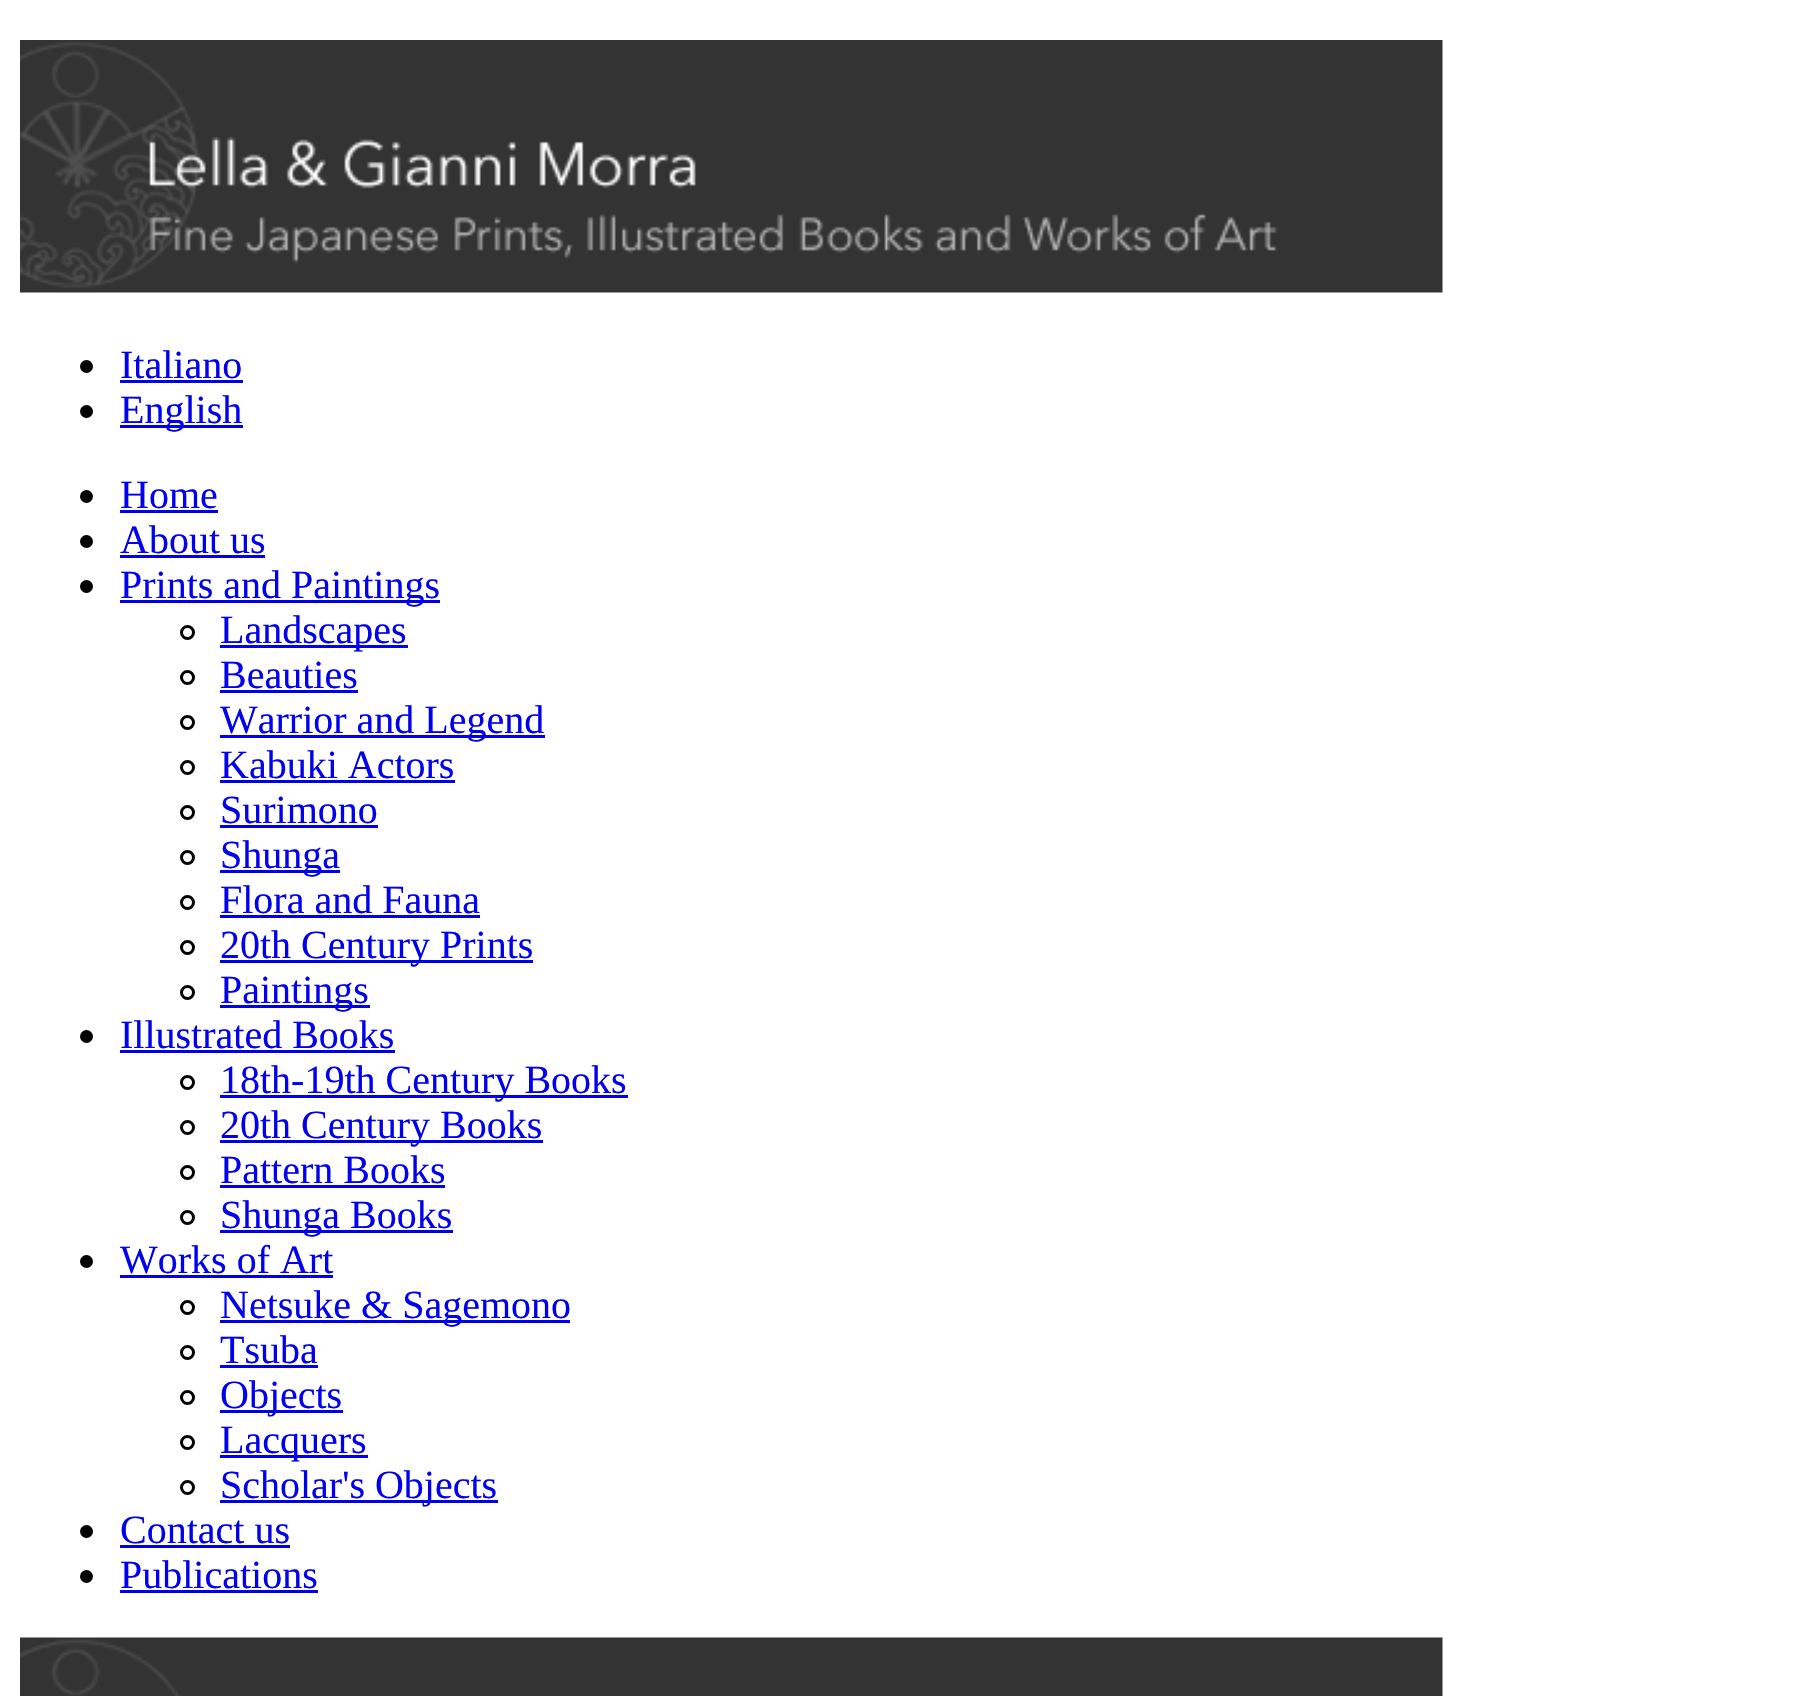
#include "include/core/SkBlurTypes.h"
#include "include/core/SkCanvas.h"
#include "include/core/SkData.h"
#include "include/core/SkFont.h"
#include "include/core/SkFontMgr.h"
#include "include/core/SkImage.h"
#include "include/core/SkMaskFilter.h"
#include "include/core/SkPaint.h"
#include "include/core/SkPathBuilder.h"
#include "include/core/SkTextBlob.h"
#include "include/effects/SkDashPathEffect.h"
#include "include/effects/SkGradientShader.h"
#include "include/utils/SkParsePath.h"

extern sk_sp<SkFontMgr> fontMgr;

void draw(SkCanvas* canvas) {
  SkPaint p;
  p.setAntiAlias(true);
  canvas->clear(SK_ColorWHITE);
  canvas->drawImageRect(SkImages::DeferredFromEncodedData(SkData::MakeFromFileName("images/1.png")), SkRect::MakeLTRB(20, 40, 1443, 293), SkSamplingOptions());
  p.setColor(SK_ColorBLACK);
  canvas->drawCircle(86.5f, 366.5f, 6.5f, p);
  p.setColor(SkColorSetRGB(0, 0, 238));
  canvas->drawRect(SkRect::MakeLTRB(120, 380, 243, 383), p);
  p.setColor(SK_ColorBLACK);
  canvas->drawCircle(86.5f, 411.5f, 6.5f, p);
  p.setColor(SkColorSetRGB(0, 0, 238));
  canvas->drawRect(SkRect::MakeLTRB(120, 425, 243, 428), p);
  p.setColor(SK_ColorBLACK);
  canvas->drawCircle(86.5f, 496.5f, 6.5f, p);
  p.setColor(SkColorSetRGB(0, 0, 238));
  canvas->drawRect(SkRect::MakeLTRB(120, 510, 218, 513), p);
  p.setColor(SK_ColorBLACK);
  canvas->drawCircle(86.5f, 541.5f, 6.5f, p);
  p.setColor(SkColorSetRGB(0, 0, 238));
  canvas->drawRect(SkRect::MakeLTRB(120, 555, 265, 558), p);
  p.setColor(SK_ColorBLACK);
  canvas->drawCircle(86.5f, 586.5f, 6.5f, p);
  p.setColor(SkColorSetRGB(0, 0, 238));
  canvas->drawRect(SkRect::MakeLTRB(120, 600, 440, 603), p);
  p.setStyle(SkPaint::kStroke_Style);
  p.setStrokeWidth(3);
  p.setColor(SK_ColorBLACK);
  canvas->drawCircle(187.5f, 632.5f, 6, p);
  p.setStyle(SkPaint::kFill_Style);
  p.setColor(SkColorSetRGB(0, 0, 238));
  canvas->drawRect(SkRect::MakeLTRB(220, 645, 408, 648), p);
  p.setStyle(SkPaint::kStroke_Style);
  p.setColor(SK_ColorBLACK);
  canvas->drawCircle(187.5f, 677.5f, 6, p);
  p.setStyle(SkPaint::kFill_Style);
  p.setColor(SkColorSetRGB(0, 0, 238));
  canvas->drawRect(SkRect::MakeLTRB(220, 690, 358, 693), p);
  p.setStyle(SkPaint::kStroke_Style);
  p.setColor(SK_ColorBLACK);
  canvas->drawCircle(187.5f, 722.5f, 6, p);
  p.setStyle(SkPaint::kFill_Style);
  p.setColor(SkColorSetRGB(0, 0, 238));
  canvas->drawRect(SkRect::MakeLTRB(220, 735, 545, 738), p);
  p.setStyle(SkPaint::kStroke_Style);
  p.setColor(SK_ColorBLACK);
  canvas->drawCircle(187.5f, 767.5f, 6, p);
  p.setStyle(SkPaint::kFill_Style);
  p.setColor(SkColorSetRGB(0, 0, 238));
  canvas->drawRect(SkRect::MakeLTRB(220, 780, 455, 783), p);
  p.setStyle(SkPaint::kStroke_Style);
  p.setColor(SK_ColorBLACK);
  canvas->drawCircle(187.5f, 812.5f, 6, p);
  p.setStyle(SkPaint::kFill_Style);
  p.setColor(SkColorSetRGB(0, 0, 238));
  canvas->drawRect(SkRect::MakeLTRB(220, 825, 378, 828), p);
  p.setStyle(SkPaint::kStroke_Style);
  p.setColor(SK_ColorBLACK);
  canvas->drawCircle(187.5f, 857.5f, 6, p);
  p.setStyle(SkPaint::kFill_Style);
  p.setColor(SkColorSetRGB(0, 0, 238));
  canvas->drawRect(SkRect::MakeLTRB(220, 870, 340, 873), p);
  p.setStyle(SkPaint::kStroke_Style);
  p.setColor(SK_ColorBLACK);
  canvas->drawCircle(187.5f, 902.5f, 6, p);
  p.setStyle(SkPaint::kFill_Style);
  p.setColor(SkColorSetRGB(0, 0, 238));
  canvas->drawRect(SkRect::MakeLTRB(220, 915, 480, 918), p);
  p.setStyle(SkPaint::kStroke_Style);
  p.setColor(SK_ColorBLACK);
  canvas->drawCircle(187.5f, 947.5f, 6, p);
  p.setStyle(SkPaint::kFill_Style);
  p.setColor(SkColorSetRGB(0, 0, 238));
  canvas->drawRect(SkRect::MakeLTRB(220, 960, 533, 963), p);
  p.setStyle(SkPaint::kStroke_Style);
  p.setColor(SK_ColorBLACK);
  canvas->drawCircle(187.5f, 992.5f, 6, p);
  p.setStyle(SkPaint::kFill_Style);
  p.setColor(SkColorSetRGB(0, 0, 238));
  canvas->drawRect(SkRect::MakeLTRB(220, 1005, 370, 1008), p);
  p.setColor(SK_ColorBLACK);
  canvas->drawCircle(86.5f, 1036.5f, 6.5f, p);
  p.setColor(SkColorSetRGB(0, 0, 238));
  canvas->drawRect(SkRect::MakeLTRB(120, 1050, 395, 1053), p);
  p.setStyle(SkPaint::kStroke_Style);
  p.setColor(SK_ColorBLACK);
  canvas->drawCircle(187.5f, 1082.5f, 6, p);
  p.setStyle(SkPaint::kFill_Style);
  p.setColor(SkColorSetRGB(0, 0, 238));
  canvas->drawRect(SkRect::MakeLTRB(220, 1095, 628, 1098), p);
  p.setStyle(SkPaint::kStroke_Style);
  p.setColor(SK_ColorBLACK);
  canvas->drawCircle(187.5f, 1127.5f, 6, p);
  p.setStyle(SkPaint::kFill_Style);
  p.setColor(SkColorSetRGB(0, 0, 238));
  canvas->drawRect(SkRect::MakeLTRB(220, 1140, 543, 1143), p);
  p.setStyle(SkPaint::kStroke_Style);
  p.setColor(SK_ColorBLACK);
  canvas->drawCircle(187.5f, 1172.5f, 6, p);
  p.setStyle(SkPaint::kFill_Style);
  p.setColor(SkColorSetRGB(0, 0, 238));
  canvas->drawRect(SkRect::MakeLTRB(220, 1185, 445, 1188), p);
  p.setStyle(SkPaint::kStroke_Style);
  p.setColor(SK_ColorBLACK);
  canvas->drawCircle(187.5f, 1217.5f, 6, p);
  p.setStyle(SkPaint::kFill_Style);
  p.setColor(SkColorSetRGB(0, 0, 238));
  canvas->drawRect(SkRect::MakeLTRB(220, 1230, 453, 1233), p);
  p.setColor(SK_ColorBLACK);
  canvas->drawCircle(86.5f, 1261.5f, 6.5f, p);
  p.setColor(SkColorSetRGB(0, 0, 238));
  canvas->drawRect(SkRect::MakeLTRB(120, 1275, 333, 1278), p);
  p.setStyle(SkPaint::kStroke_Style);
  p.setColor(SK_ColorBLACK);
  canvas->drawCircle(187.5f, 1307.5f, 6, p);
  p.setStyle(SkPaint::kFill_Style);
  p.setColor(SkColorSetRGB(0, 0, 238));
  canvas->drawRect(SkRect::MakeLTRB(220, 1320, 570, 1323), p);
  p.setStyle(SkPaint::kStroke_Style);
  p.setColor(SK_ColorBLACK);
  canvas->drawCircle(187.5f, 1352.5f, 6, p);
  p.setStyle(SkPaint::kFill_Style);
  p.setColor(SkColorSetRGB(0, 0, 238));
  canvas->drawRect(SkRect::MakeLTRB(220, 1365, 318, 1368), p);
  p.setStyle(SkPaint::kStroke_Style);
  p.setColor(SK_ColorBLACK);
  canvas->drawCircle(187.5f, 1397.5f, 6, p);
  p.setStyle(SkPaint::kFill_Style);
  p.setColor(SkColorSetRGB(0, 0, 238));
  canvas->drawRect(SkRect::MakeLTRB(220, 1410, 343, 1413), p);
  p.setStyle(SkPaint::kStroke_Style);
  p.setColor(SK_ColorBLACK);
  canvas->drawCircle(187.5f, 1442.5f, 6, p);
  p.setStyle(SkPaint::kFill_Style);
  p.setColor(SkColorSetRGB(0, 0, 238));
  canvas->drawRect(SkRect::MakeLTRB(220, 1455, 368, 1458), p);
  p.setStyle(SkPaint::kStroke_Style);
  p.setColor(SK_ColorBLACK);
  canvas->drawCircle(187.5f, 1487.5f, 6, p);
  p.setStyle(SkPaint::kFill_Style);
  p.setColor(SkColorSetRGB(0, 0, 238));
  canvas->drawRect(SkRect::MakeLTRB(220, 1500, 498, 1503), p);
  p.setColor(SK_ColorBLACK);
  canvas->drawCircle(86.5f, 1531.5f, 6.5f, p);
  p.setColor(SkColorSetRGB(0, 0, 238));
  canvas->drawRect(SkRect::MakeLTRB(120, 1545, 290, 1548), p);
  p.setColor(SK_ColorBLACK);
  canvas->drawCircle(86.5f, 1576.5f, 6.5f, p);
  p.setColor(SkColorSetRGB(0, 0, 238));
  canvas->drawRect(SkRect::MakeLTRB(120, 1590, 318, 1593), p);
  canvas->drawImageRect(SkImages::DeferredFromEncodedData(SkData::MakeFromFileName("images/2.png")), SkRect::MakeLTRB(20, 1637, 1443, 1696), SkSamplingOptions());
  SkFont font1(fontMgr->matchFamilyStyle("Liberation Serif", SkFontStyle::Normal()), 40);
  font1.setSubpixel(true);
  canvas->drawString("Italiano", 120, 378, font1, p);
  canvas->drawString("English", 120, 423, font1, p);
  canvas->drawString("Home", 120, 508, font1, p);
  canvas->drawString("About us", 120, 553, font1, p);
  canvas->drawString("Prints and Paintings", 120, 598, font1, p);
  canvas->drawString("Landscapes", 220, 643, font1, p);
  canvas->drawString("Beauties", 220, 688, font1, p);
  canvas->drawString("Warrior and Legend", 220, 733, font1, p);
  canvas->drawString("Kabuki Actors", 220, 778, font1, p);
  canvas->drawString("Surimono", 220, 823, font1, p);
  canvas->drawString("Shunga", 220, 868, font1, p);
  canvas->drawString("Flora and Fauna", 220, 913, font1, p);
  canvas->drawString("20th Century Prints", 220, 958, font1, p);
  canvas->drawString("Paintings", 220, 1003, font1, p);
  canvas->drawString("Illustrated Books", 120, 1048, font1, p);
  canvas->drawString("18th-19th Century Books", 220, 1093, font1, p);
  canvas->drawString("20th Century Books", 220, 1138, font1, p);
  canvas->drawString("Pattern Books", 220, 1183, font1, p);
  canvas->drawString("Shunga Books", 220, 1228, font1, p);
  canvas->drawString("Works of Art", 120, 1273, font1, p);
  canvas->drawString("Netsuke & Sagemono", 220, 1318, font1, p);
  canvas->drawString("Tsuba", 220, 1363, font1, p);
  canvas->drawString("Objects", 220, 1408, font1, p);
  canvas->drawString("Lacquers", 220, 1453, font1, p);
  canvas->drawString("Scholar's Objects", 220, 1498, font1, p);
  canvas->drawString("Contact us", 120, 1543, font1, p);
  canvas->drawString("Publications", 120, 1588, font1, p);
}
